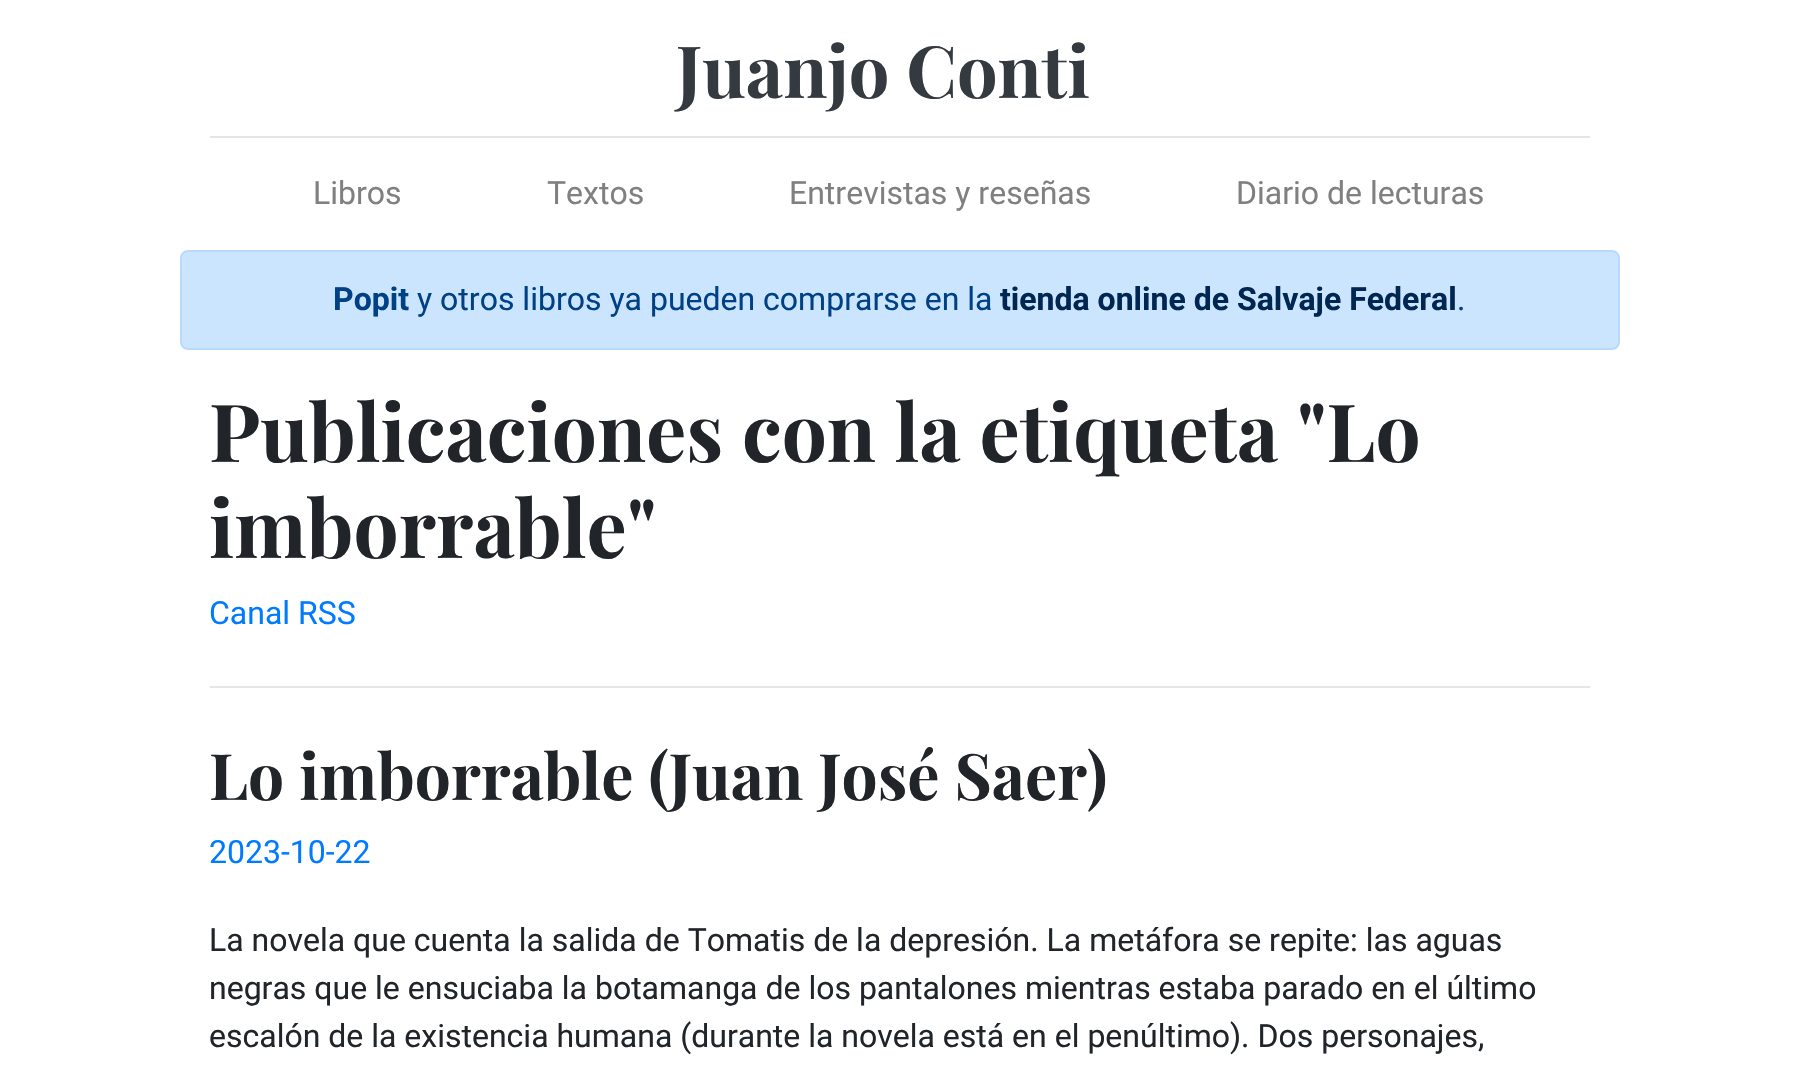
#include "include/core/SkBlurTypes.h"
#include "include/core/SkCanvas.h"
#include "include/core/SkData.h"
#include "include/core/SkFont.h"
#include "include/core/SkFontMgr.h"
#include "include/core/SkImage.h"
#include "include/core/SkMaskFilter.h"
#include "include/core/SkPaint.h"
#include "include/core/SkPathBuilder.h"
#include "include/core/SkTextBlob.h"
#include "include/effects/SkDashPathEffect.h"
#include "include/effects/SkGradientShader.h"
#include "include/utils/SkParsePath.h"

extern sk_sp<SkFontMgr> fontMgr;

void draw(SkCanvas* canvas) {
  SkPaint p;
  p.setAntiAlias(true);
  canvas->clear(SK_ColorWHITE);
  p.setColor(SkColorSetRGB(229, 229, 229));
  canvas->drawRect(SkRect::MakeLTRB(210, 136, 1590, 138), p);
  p.setColor(SkColorSetRGB(204, 229, 255));
  canvas->drawRoundRect(SkRect::MakeLTRB(181, 251, 1619, 349), 7, 7, p);
  p.setStyle(SkPaint::kStroke_Style);
  p.setStrokeWidth(2);
  p.setColor(SkColorSetRGB(184, 218, 255));
  canvas->drawRoundRect(SkRect::MakeLTRB(181, 251, 1619, 349), 7, 7, p);
  p.setStyle(SkPaint::kFill_Style);
  p.setColor(SkColorSetRGB(230, 230, 230));
  canvas->drawRect(SkRect::MakeLTRB(210, 686, 1590, 688), p);
  SkFont font1(fontMgr->matchFamilyStyle("Playfair Display", SkFontStyle::Bold()), 72);
  font1.setSubpixel(true);
  p.setColor(SkColorSetRGB(52, 58, 64));
  canvas->drawString("Juanjo Conti", 676, 98, font1, p);
  SkFont font2(fontMgr->matchFamilyStyle("Roboto", SkFontStyle::Normal()), 32);
  font2.setSubpixel(true);
  p.setColor(SkColorSetRGB(128, 128, 128));
  canvas->drawString("Libros", 313, 204, font2, p);
  canvas->drawString("Textos", 547, 204, font2, p);
  canvas->drawString("Entrevistas y reseñas", 789, 204, font2, p);
  canvas->drawString("Diario de lecturas", 1236, 204, font2, p);
  SkFont font3(fontMgr->matchFamilyStyle("Roboto", SkFontStyle::Bold()), 32);
  font3.setSubpixel(true);
  p.setColor(SkColorSetRGB(0, 64, 133));
  canvas->drawString("Popit", 333, 310, font3, p);
  canvas->drawString("y otros libros ya pueden comprarse en la", 417, 310, font2, p);
  p.setColor(SkColorSetRGB(0, 39, 82));
  canvas->drawString("tienda online de Salvaje Federal", 1000, 310, font3, p);
  p.setColor(SkColorSetRGB(0, 64, 133));
  canvas->drawString(".", 1457, 310, font2, p);
  SkFont font4(fontMgr->matchFamilyStyle("Playfair Display", SkFontStyle::Bold()), 80);
  font4.setSubpixel(true);
  p.setColor(SkColorSetRGB(33, 37, 41));
  canvas->drawString("Publicaciones con la etiqueta \"Lo", 209, 462, font4, p);
  canvas->drawString("imborrable\"", 209, 558, font4, p);
  p.setColor(SkColorSetRGB(0, 123, 255));
  canvas->drawString("Canal RSS", 209, 624, font2, p);
  SkFont font5(fontMgr->matchFamilyStyle("Playfair Display", SkFontStyle::Bold()), 64);
  font5.setSubpixel(true);
  p.setColor(SkColorSetRGB(33, 37, 41));
  canvas->drawString("Lo imborrable (Juan José Saer)", 209, 800, font5, p);
  p.setColor(SkColorSetRGB(0, 123, 255));
  canvas->drawString("2023-10-22", 209, 863, font2, p);
  p.setColor(SkColorSetRGB(33, 37, 41));
  canvas->drawString("La novela que cuenta la salida de Tomatis de la depresión. La metáfora se repite: las aguas", 209, 951, font2, p);
  canvas->drawString("negras que le ensuciaba la botamanga de los pantalones mientras estaba parado en el último", 209, 999, font2, p);
  canvas->drawString("escalón de la existencia humana (durante la novela está en el penúltimo). Dos personajes,", 209, 1047, font2, p);
}
